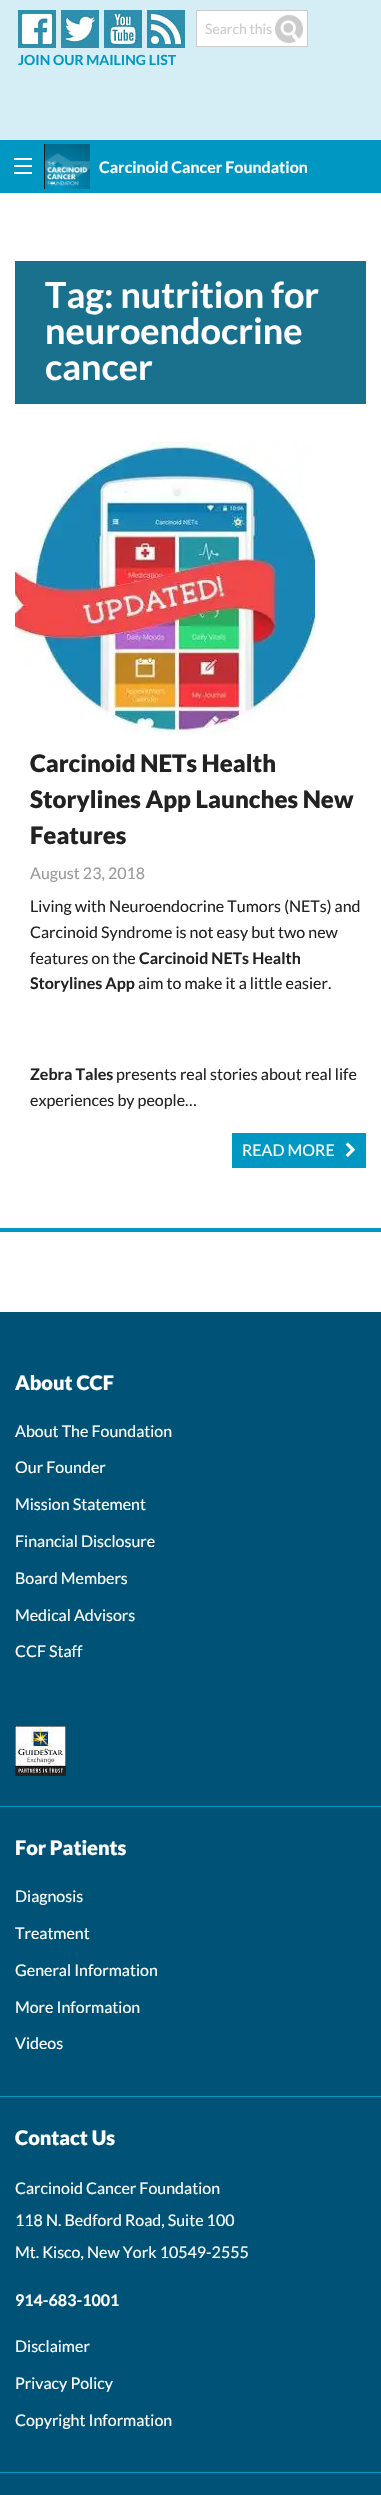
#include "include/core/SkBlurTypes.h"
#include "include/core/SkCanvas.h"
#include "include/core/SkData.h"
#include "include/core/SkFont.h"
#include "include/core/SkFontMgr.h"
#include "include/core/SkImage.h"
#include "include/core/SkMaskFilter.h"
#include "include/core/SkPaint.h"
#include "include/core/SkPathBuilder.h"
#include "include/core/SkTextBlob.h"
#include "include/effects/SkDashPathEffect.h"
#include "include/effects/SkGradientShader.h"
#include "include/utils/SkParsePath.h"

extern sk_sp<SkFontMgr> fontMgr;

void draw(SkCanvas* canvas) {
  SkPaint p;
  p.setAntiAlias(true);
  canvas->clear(SK_ColorWHITE);
  p.setColor(SkColorSetRGB(213, 237, 244));
  canvas->drawRect(SkRect::MakeLTRB(0, 0, 381, 140), p);
  p.setColor(SkColorSetRGB(0, 151, 195));
  canvas->drawRect(SkRect::MakeLTRB(0, 140, 381, 144), p);
  p.setColor(SK_ColorWHITE);
  canvas->drawRect(SkRect::MakeLTRB(196.5f, 10.5f, 307.5f, 46.5f), p);
  p.setStyle(SkPaint::kStroke_Style);
  p.setStrokeWidth(1);
  p.setColor(SkColorSetRGB(204, 204, 204));
  canvas->drawRect(SkRect::MakeLTRB(196.5f, 10.5f, 307.5f, 46.5f), p);
  canvas->drawImageRect(SkImages::DeferredFromEncodedData(SkData::MakeFromFileName("images/1.png")), SkRect::MakeLTRB(275, 15, 303, 43), SkSamplingOptions());
  canvas->drawImageRect(SkImages::DeferredFromEncodedData(SkData::MakeFromFileName("images/2.png")), SkRect::MakeLTRB(18, 10, 56, 48), SkSamplingOptions());
  canvas->drawImageRect(SkImages::DeferredFromEncodedData(SkData::MakeFromFileName("images/3.png")), SkRect::MakeLTRB(61, 10, 99, 48), SkSamplingOptions());
  canvas->drawImageRect(SkImages::DeferredFromEncodedData(SkData::MakeFromFileName("images/4.png")), SkRect::MakeLTRB(104, 10, 142, 48), SkSamplingOptions());
  canvas->drawImageRect(SkImages::DeferredFromEncodedData(SkData::MakeFromFileName("images/5.png")), SkRect::MakeLTRB(147, 10, 185, 48), SkSamplingOptions());
  p.setStyle(SkPaint::kFill_Style);
  p.setColor(SkColorSetRGB(0, 151, 195));
  canvas->drawRect(SkRect::MakeLTRB(0, 144, 381, 193), p);
  canvas->drawImageRect(SkImages::DeferredFromEncodedData(SkData::MakeFromFileName("images/6.png")), SkRect::MakeLTRB(45, 144, 90, 189), SkSamplingOptions());
  p.setColor(SkColorSetRGB(26, 26, 26));
  canvas->drawRect(SkRect::MakeLTRB(44, 144, 45, 189), p);
  p.setColor(SK_ColorWHITE);
  canvas->drawRect(SkRect::MakeLTRB(14, 172, 32, 174), p);
  canvas->drawRect(SkRect::MakeLTRB(14, 165, 32, 167), p);
  canvas->drawRect(SkRect::MakeLTRB(14, 158, 32, 160), p);
  p.setColor(SkColorSetRGB(26, 113, 142));
  canvas->drawRect(SkRect::MakeLTRB(15, 261, 366, 404), p);
  p.setColor(SkColorSetRGB(0, 151, 195));
  canvas->drawRect(SkRect::MakeLTRB(0, 1228, 381, 1232), p);
  canvas->drawImageRect(SkImages::DeferredFromEncodedData(SkData::MakeFromFileName("images/7.png")), SkRect::MakeLTRB(15, 442, 315, 736), SkSamplingOptions());
  canvas->drawRect(SkRect::MakeLTRB(232, 1133, 366, 1168), p);
  canvas->drawImageRect(SkImages::DeferredFromEncodedData(SkData::MakeFromFileName("images/8.png")), SkRect::MakeLTRB(345, 1142, 355, 1157), SkSamplingOptions());
  p.setColor(SkColorSetRGB(0, 83, 119));
  canvas->drawRect(SkRect::MakeLTRB(0, 1312, 381, 2495), p);
  p.setColor(SkColorSetRGB(0, 151, 195));
  canvas->drawRect(SkRect::MakeLTRB(0, 1806, 381, 1807), p);
  canvas->drawImageRect(SkImages::DeferredFromEncodedData(SkData::MakeFromFileName("images/9.png")), SkRect::MakeLTRB(15, 1726, 66, 1776), SkSamplingOptions());
  canvas->drawRect(SkRect::MakeLTRB(0, 2096, 381, 2097), p);
  canvas->drawRect(SkRect::MakeLTRB(0, 2472, 381, 2473), p);
  SkFont font1(fontMgr->matchFamilyStyle("Lato", SkFontStyle::Normal()), 14);
  font1.setSubpixel(true);
  p.setColor(SkColorSetRGB(204, 204, 204));
  canvas->drawString("Search this", 205, 34, font1, p);
  SkFont font2(fontMgr->matchFamilyStyle("Lato", SkFontStyle::Bold()), 14);
  font2.setSubpixel(true);
  p.setColor(SkColorSetRGB(0, 151, 195));
  canvas->drawString("JOIN OUR MAILING LIST", 18, 65, font2, p);
  SkFont font3(fontMgr->matchFamilyStyle("Lato", SkFontStyle::Bold()), 16);
  font3.setSubpixel(true);
  p.setColor(SK_ColorWHITE);
  canvas->drawString("Carcinoid Cancer Foundation", 99, 173, font3, p);
  SkFont font4(fontMgr->matchFamilyStyle("Lato", SkFontStyle::Normal()), 16);
  font4.setSubpixel(true);
  canvas->drawString("-", 50, 188, font4, p);
  SkFont font5(fontMgr->matchFamilyStyle("Lato", SkFontStyle::Bold()), 36);
  font5.setSubpixel(true);
  canvas->drawString("Tag: nutrition for", 45, 308, font5, p);
  canvas->drawString("neuroendocrine", 45, 344, font5, p);
  canvas->drawString("cancer", 45, 380, font5, p);
  SkFont font6(fontMgr->matchFamilyStyle("Lato", SkFontStyle(900, SkFontStyle::kNormal_Width, SkFontStyle::kUpright_Slant)), 24);
  font6.setSubpixel(true);
  p.setColor(SkColorSetRGB(34, 34, 34));
  canvas->drawString("Carcinoid NETs Health", 30, 772, font6, p);
  canvas->drawString("Storylines App Launches New", 30, 808, font6, p);
  canvas->drawString("Features", 30, 844, font6, p);
  p.setColor(SkColorSetRGB(153, 153, 153));
  canvas->drawString("August 23, 2018", 30, 879, font4, p);
  p.setColor(SkColorSetRGB(34, 34, 34));
  canvas->drawString("Living with Neuroendocrine Tumors (NETs) and", 30, 912, font4, p);
  canvas->drawString("Carcinoid Syndrome is not easy but two new", 30, 938, font4, p);
  canvas->drawString("features on the", 30, 964, font4, p);
  canvas->drawString("Carcinoid NETs Health", 139, 964, font3, p);
  canvas->drawString("Storylines App", 30, 989, font3, p);
  canvas->drawString("aim to make it a little easier.", 138, 989, font4, p);
  canvas->drawString("Zebra Tales", 30, 1080, font3, p);
  canvas->drawString("presents real stories about real life", 116, 1080, font4, p);
  canvas->drawString("experiences by people…", 30, 1106, font4, p);
  p.setColor(SK_ColorWHITE);
  canvas->drawString("READ MORE", 242, 1156, font4, p);
  SkFont font7(fontMgr->matchFamilyStyle("Lato", SkFontStyle(900, SkFontStyle::kNormal_Width, SkFontStyle::kUpright_Slant)), 20);
  font7.setSubpixel(true);
  canvas->drawString("About CCF", 15, 1390, font7, p);
  canvas->drawString("About The Foundation", 15, 1437, font4, p);
  canvas->drawString("Our Founder", 15, 1473, font4, p);
  canvas->drawString("Mission Statement", 15, 1510, font4, p);
  canvas->drawString("Financial Disclosure", 15, 1547, font4, p);
  canvas->drawString("Board Members", 15, 1584, font4, p);
  canvas->drawString("Medical Advisors", 15, 1621, font4, p);
  canvas->drawString("CCF Staff", 15, 1657, font4, p);
  canvas->drawString("For Patients", 15, 1855, font7, p);
  canvas->drawString("Diagnosis", 15, 1902, font4, p);
  canvas->drawString("Treatment", 15, 1939, font4, p);
  canvas->drawString("General Information", 15, 1976, font4, p);
  canvas->drawString("More Information", 15, 2013, font4, p);
  canvas->drawString("Videos", 15, 2049, font4, p);
  canvas->drawString("Contact Us", 15, 2145, font7, p);
  canvas->drawString("Carcinoid Cancer Foundation", 15, 2194, font4, p);
  canvas->drawString("118 N. Bedford Road, Suite 100", 15, 2226, font4, p);
  canvas->drawString("Mt. Kisco, New York 10549-2555", 15, 2258, font4, p);
  canvas->drawString("914-683-1001", 15, 2306, font3, p);
  canvas->drawString("Disclaimer", 15, 2352, font4, p);
  canvas->drawString("Privacy Policy", 15, 2389, font4, p);
  canvas->drawString("Copyright Information", 15, 2426, font4, p);
}
